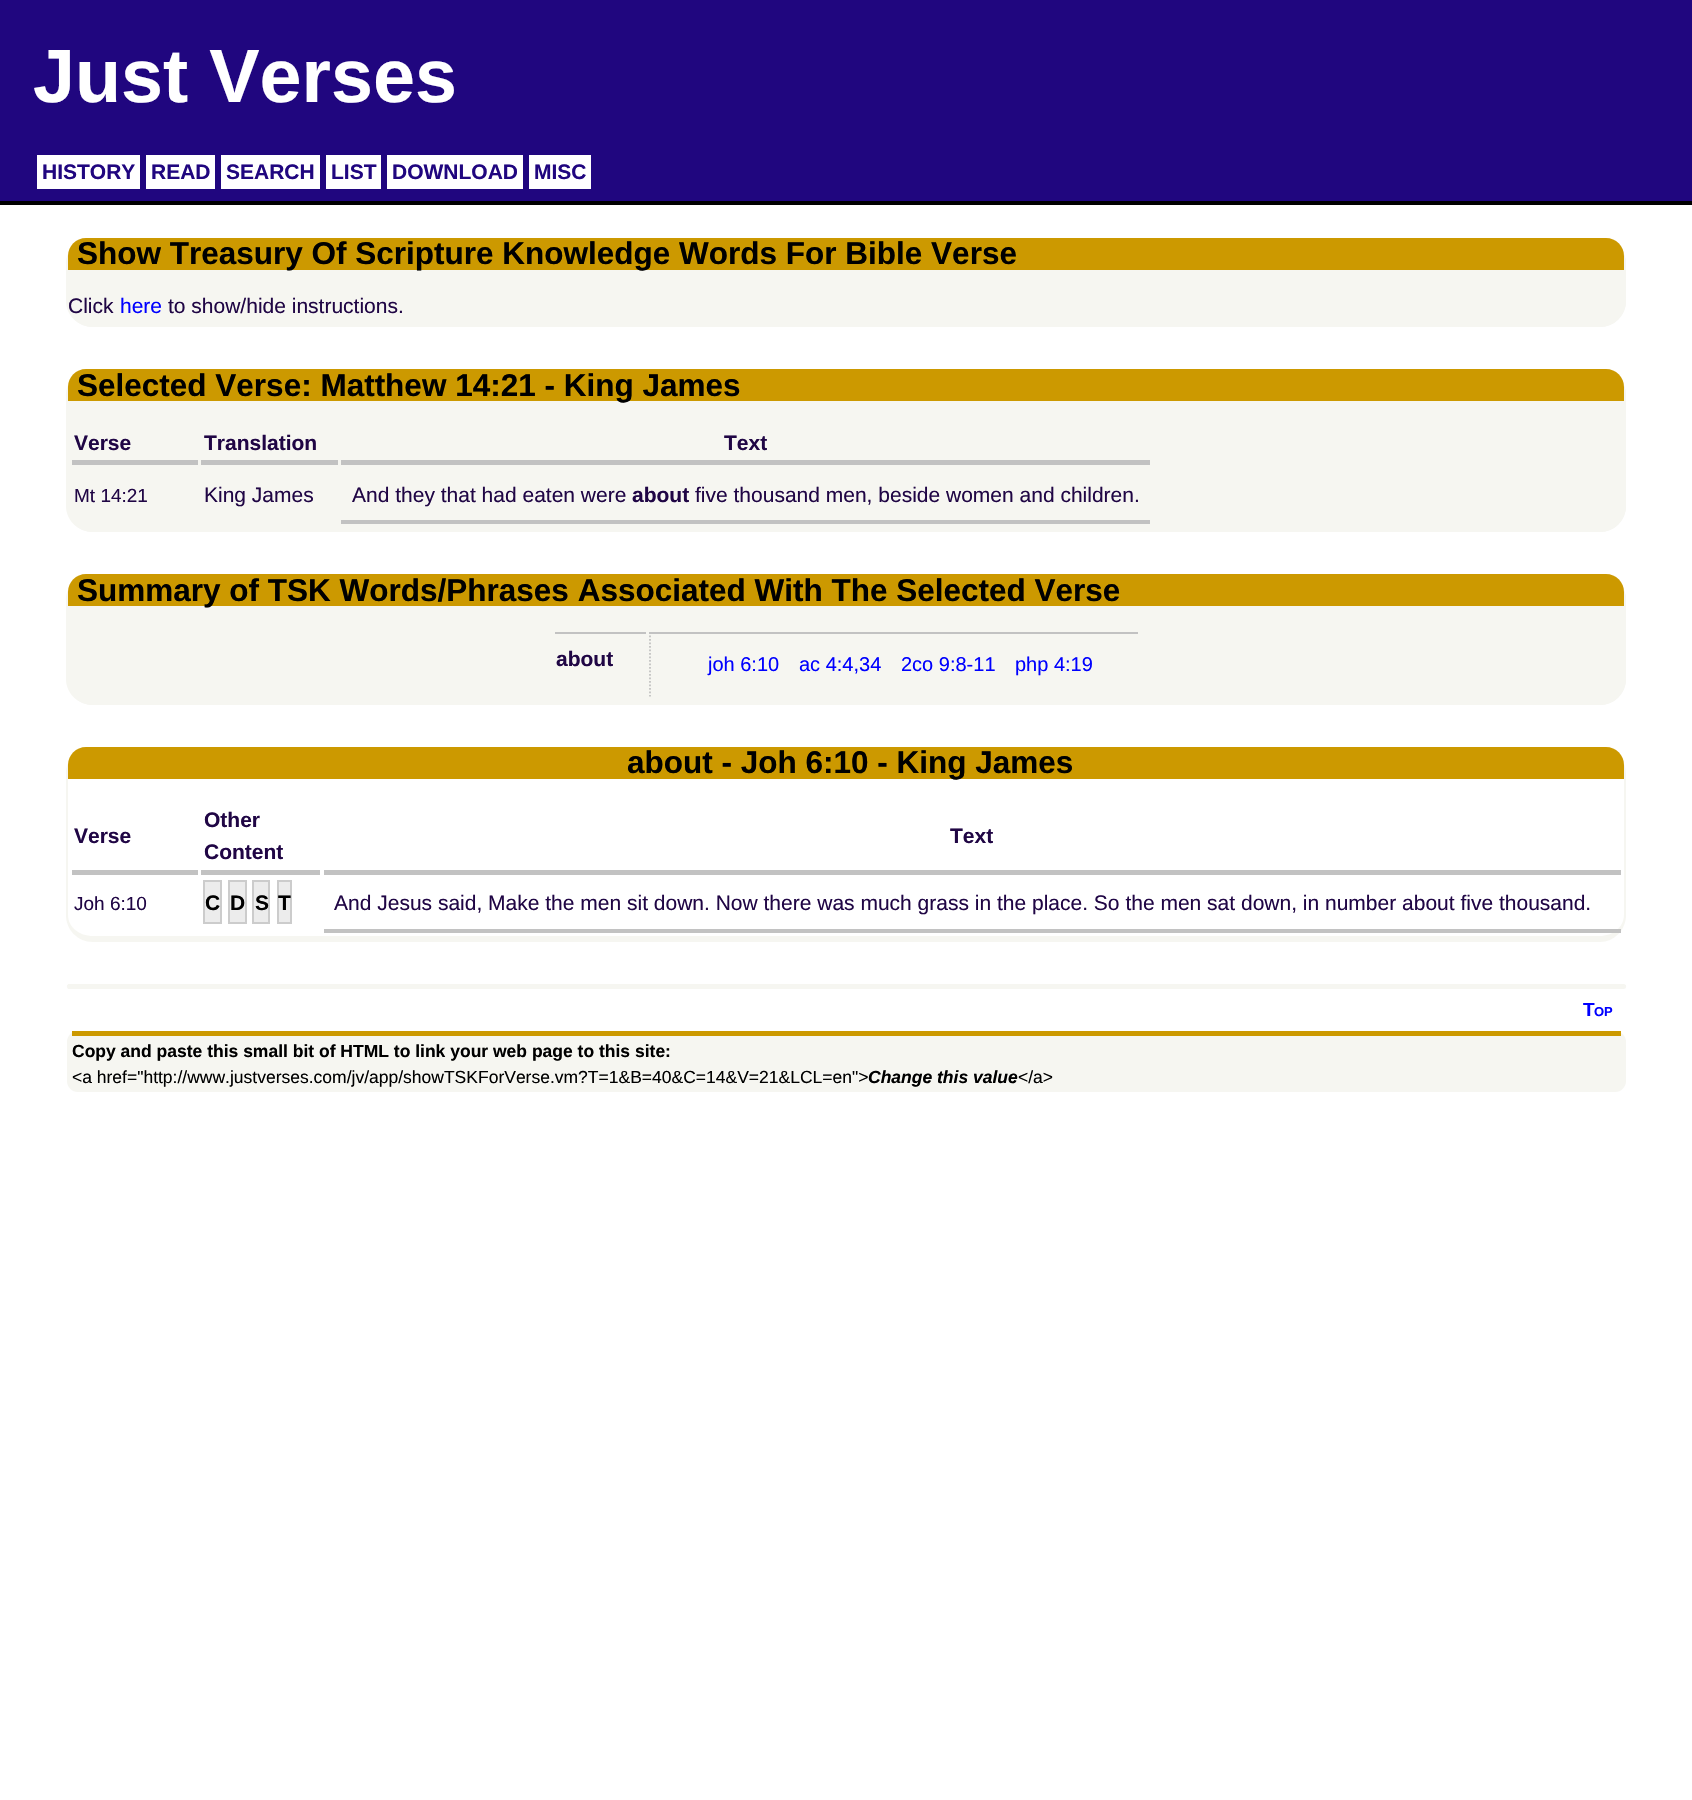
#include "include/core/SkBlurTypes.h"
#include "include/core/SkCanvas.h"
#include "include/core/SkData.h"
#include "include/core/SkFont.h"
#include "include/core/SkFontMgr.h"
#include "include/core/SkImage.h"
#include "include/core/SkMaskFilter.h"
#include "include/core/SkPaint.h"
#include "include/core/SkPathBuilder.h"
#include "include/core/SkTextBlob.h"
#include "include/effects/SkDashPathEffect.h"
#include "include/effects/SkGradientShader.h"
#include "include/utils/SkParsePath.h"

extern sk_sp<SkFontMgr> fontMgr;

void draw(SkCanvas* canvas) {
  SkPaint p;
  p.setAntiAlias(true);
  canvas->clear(SK_ColorWHITE);
  p.setColor(SkColorSetRGB(32, 6, 127));
  canvas->drawRect(SkRect::MakeLTRB(0, 0, 1692, 201), p);
  p.setColor(SK_ColorBLACK);
  canvas->drawRect(SkRect::MakeLTRB(0, 201, 1692, 205), p);
  p.setColor(SK_ColorWHITE);
  canvas->drawRect(SkRect::MakeLTRB(37, 155, 140, 189), p);
  canvas->drawRect(SkRect::MakeLTRB(146, 155, 215, 189), p);
  canvas->drawRect(SkRect::MakeLTRB(221, 155, 320, 189), p);
  canvas->drawRect(SkRect::MakeLTRB(326, 155, 381, 189), p);
  canvas->drawRect(SkRect::MakeLTRB(387, 155, 523, 189), p);
  canvas->drawRect(SkRect::MakeLTRB(529, 155, 591, 189), p);
  p.setColor(SkColorSetRGB(246, 246, 241));
  canvas->drawRoundRect(SkRect::MakeLTRB(67, 238, 1626, 327), 26, 26, p);
  canvas->drawPath(SkPathBuilder(SkPathFillType::kEvenOdd).moveTo(93, 238).lineTo(1600, 238).cubicTo(1614, 238, 1626, 250, 1626, 264).lineTo(1626, 301).cubicTo(1626, 315, 1614, 327, 1600, 327).lineTo(93, 327).cubicTo(78, 327, 66, 315, 66, 301).lineTo(66, 264).cubicTo(66, 250, 78, 238, 93, 238).close().moveTo(93, 238).lineTo(1600, 238).cubicTo(1613, 238, 1624, 250, 1624, 264).lineTo(1624, 301).cubicTo(1624, 313, 1613, 322, 1600, 322).lineTo(93, 322).cubicTo(79, 322, 68, 313, 68, 301).lineTo(68, 264).cubicTo(68, 250, 79, 238, 93, 238).close().detach(), p);
  p.setColor(SkColorSetRGB(204, 153, 0));
  canvas->drawPath(SkPathBuilder().moveTo(86, 238).lineTo(1606, 238).cubicTo(1616, 238, 1624, 246, 1624, 256).lineTo(1624, 270).lineTo(68, 270).lineTo(68, 256).cubicTo(68, 246, 76, 238, 86, 238).close().detach(), p);
  p.setColor(SkColorSetRGB(246, 246, 241));
  canvas->drawRoundRect(SkRect::MakeLTRB(67, 369, 1626, 532), 26, 26, p);
  canvas->drawPath(SkPathBuilder(SkPathFillType::kEvenOdd).moveTo(93, 369).lineTo(1600, 369).cubicTo(1614, 369, 1626, 381, 1626, 396).lineTo(1626, 506).cubicTo(1626, 520, 1614, 532, 1600, 532).lineTo(93, 532).cubicTo(78, 532, 66, 520, 66, 506).lineTo(66, 396).cubicTo(66, 381, 78, 369, 93, 369).close().moveTo(93, 369).lineTo(1600, 369).cubicTo(1613, 369, 1624, 381, 1624, 396).lineTo(1624, 506).cubicTo(1624, 517, 1613, 527, 1600, 527).lineTo(93, 527).cubicTo(79, 527, 68, 517, 68, 506).lineTo(68, 396).cubicTo(68, 381, 79, 369, 93, 369).close().detach(), p);
  p.setColor(SkColorSetRGB(204, 153, 0));
  canvas->drawPath(SkPathBuilder().moveTo(86, 369).lineTo(1606, 369).cubicTo(1616, 369, 1624, 377, 1624, 387).lineTo(1624, 401).lineTo(68, 401).lineTo(68, 387).cubicTo(68, 377, 76, 369, 86, 369).close().detach(), p);
  p.setColor(SkColorSetRGB(194, 194, 194));
  canvas->drawRect(SkRect::MakeLTRB(72, 460, 198, 465), p);
  canvas->drawRect(SkRect::MakeLTRB(201, 460, 338, 465), p);
  canvas->drawRect(SkRect::MakeLTRB(341, 460, 1150, 465), p);
  canvas->drawRect(SkRect::MakeLTRB(341, 520, 1150, 524), p);
  p.setColor(SkColorSetRGB(246, 246, 241));
  canvas->drawRoundRect(SkRect::MakeLTRB(67, 574, 1626, 705), 26, 26, p);
  canvas->drawPath(SkPathBuilder(SkPathFillType::kEvenOdd).moveTo(93, 574).lineTo(1600, 574).cubicTo(1614, 574, 1626, 586, 1626, 600).lineTo(1626, 679).cubicTo(1626, 693, 1614, 705, 1600, 705).lineTo(93, 705).cubicTo(78, 705, 66, 693, 66, 679).lineTo(66, 600).cubicTo(66, 586, 78, 574, 93, 574).close().moveTo(93, 574).lineTo(1600, 574).cubicTo(1613, 574, 1624, 586, 1624, 600).lineTo(1624, 679).cubicTo(1624, 691, 1613, 700, 1600, 700).lineTo(93, 700).cubicTo(79, 700, 68, 691, 68, 679).lineTo(68, 600).cubicTo(68, 586, 79, 574, 93, 574).close().detach(), p);
  p.setColor(SkColorSetRGB(204, 153, 0));
  canvas->drawPath(SkPathBuilder().moveTo(86, 574).lineTo(1606, 574).cubicTo(1616, 574, 1624, 582, 1624, 592).lineTo(1624, 606).lineTo(68, 606).lineTo(68, 592).cubicTo(68, 582, 76, 574, 86, 574).close().detach(), p);
  p.setColor(SkColorSetRGB(194, 194, 194));
  canvas->drawRect(SkRect::MakeLTRB(555, 632, 646, 634), p);
  canvas->drawRect(SkRect::MakeLTRB(649, 632, 1138, 634), p);
  p.setStyle(SkPaint::kStroke_Style);
  p.setStrokeWidth(1.8f);
  p.setPathEffect(SkDashPathEffect::Make({{1.75f, 1.75f}}, 0));
  canvas->drawPath(SkPathBuilder().moveTo(650, 632).lineTo(650, 696.5f).detach(), p);
  p.setPathEffect(nullptr);
  p.setStyle(SkPaint::kFill_Style);
  p.setColor(SkColorSetRGB(246, 246, 241));
  canvas->drawPath(SkPathBuilder(SkPathFillType::kEvenOdd).moveTo(93, 747).lineTo(1600, 747).cubicTo(1614, 747, 1626, 759, 1626, 774).lineTo(1626, 915).cubicTo(1626, 930, 1614, 942, 1600, 942).lineTo(93, 942).cubicTo(78, 942, 66, 930, 66, 915).lineTo(66, 774).cubicTo(66, 759, 78, 747, 93, 747).close().moveTo(93, 747).lineTo(1600, 747).cubicTo(1613, 747, 1624, 759, 1624, 774).lineTo(1624, 915).cubicTo(1624, 927, 1613, 936, 1600, 936).lineTo(93, 936).cubicTo(79, 936, 68, 927, 68, 915).lineTo(68, 774).cubicTo(68, 759, 79, 747, 93, 747).close().detach(), p);
  p.setColor(SkColorSetRGB(204, 153, 0));
  canvas->drawPath(SkPathBuilder().moveTo(86, 747).lineTo(1606, 747).cubicTo(1616, 747, 1624, 755, 1624, 765).lineTo(1624, 779).lineTo(68, 779).lineTo(68, 765).cubicTo(68, 755, 76, 747, 86, 747).close().detach(), p);
  p.setColor(SkColorSetRGB(194, 194, 194));
  canvas->drawRect(SkRect::MakeLTRB(72, 870, 198, 875), p);
  canvas->drawRect(SkRect::MakeLTRB(201, 870, 320, 875), p);
  canvas->drawRect(SkRect::MakeLTRB(324, 870, 1621, 875), p);
  p.setColor(SkColorSetRGB(236, 236, 236));
  canvas->drawRect(SkRect::MakeLTRB(204, 881, 221, 923), p);
  p.setStyle(SkPaint::kStroke_Style);
  p.setStrokeWidth(2);
  p.setColor(SkColorSetRGB(204, 204, 204));
  canvas->drawRect(SkRect::MakeLTRB(204, 881, 221, 923), p);
  p.setStyle(SkPaint::kFill_Style);
  p.setColor(SkColorSetRGB(236, 236, 236));
  canvas->drawRect(SkRect::MakeLTRB(229, 881, 246, 923), p);
  p.setStyle(SkPaint::kStroke_Style);
  p.setColor(SkColorSetRGB(204, 204, 204));
  canvas->drawRect(SkRect::MakeLTRB(229, 881, 246, 923), p);
  p.setStyle(SkPaint::kFill_Style);
  p.setColor(SkColorSetRGB(236, 236, 236));
  canvas->drawRect(SkRect::MakeLTRB(253, 881, 269, 923), p);
  p.setStyle(SkPaint::kStroke_Style);
  p.setColor(SkColorSetRGB(204, 204, 204));
  canvas->drawRect(SkRect::MakeLTRB(253, 881, 269, 923), p);
  p.setStyle(SkPaint::kFill_Style);
  p.setColor(SkColorSetRGB(236, 236, 236));
  canvas->drawRect(SkRect::MakeLTRB(278, 881, 291, 923), p);
  p.setStyle(SkPaint::kStroke_Style);
  p.setColor(SkColorSetRGB(204, 204, 204));
  canvas->drawRect(SkRect::MakeLTRB(278, 881, 291, 923), p);
  p.setStyle(SkPaint::kFill_Style);
  p.setColor(SkColorSetRGB(194, 194, 194));
  canvas->drawRect(SkRect::MakeLTRB(324, 929, 1621, 933), p);
  p.setColor(SkColorSetRGB(246, 246, 241));
  canvas->drawRoundRect(SkRect::MakeLTRB(67, 984, 1626, 989), 2.5f, 2.5f, p);
  canvas->drawRect(SkRect::MakeLTRB(1624, 985, 1626, 986), p);
  canvas->drawRect(SkRect::MakeLTRB(68, 984, 69, 989), p);
  canvas->drawRect(SkRect::MakeLTRB(67, 985, 69, 986), p);
  canvas->drawRoundRect(SkRect::MakeLTRB(67, 1031, 1626, 1092), 11, 11, p);
  p.setColor(SkColorSetRGB(204, 153, 0));
  canvas->drawRect(SkRect::MakeLTRB(72, 1031, 1621, 1036), p);
  SkFont font1(fontMgr->matchFamilyStyle("Liberation Sans", SkFontStyle::Bold()), 75.5f);
  font1.setSubpixel(true);
  p.setColor(SK_ColorWHITE);
  canvas->drawString("Just Verses", 33, 102, font1, p);
  SkFont font2(fontMgr->matchFamilyStyle("Liberation Sans", SkFontStyle::Bold()), 21);
  font2.setSubpixel(true);
  p.setColor(SkColorSetRGB(32, 6, 127));
  canvas->drawString("HISTORY", 42, 179, font2, p);
  canvas->drawString("READ", 151, 179, font2, p);
  canvas->drawString("SEARCH", 226, 179, font2, p);
  canvas->drawString("LIST", 331, 179, font2, p);
  canvas->drawString("DOWNLOAD", 392, 179, font2, p);
  canvas->drawString("MISC", 534, 179, font2, p);
  SkFont font3(fontMgr->matchFamilyStyle("Liberation Sans", SkFontStyle::Bold()), 31.5f);
  font3.setSubpixel(true);
  p.setColor(SK_ColorBLACK);
  canvas->drawString("Show Treasury Of Scripture Knowledge Words For Bible Verse", 77, 264, font3, p);
  SkFont font4(fontMgr->matchFamilyStyle("Liberation Sans", SkFontStyle::Normal()), 21);
  font4.setSubpixel(true);
  p.setColor(SkColorSetRGB(32, 6, 69));
  canvas->drawString("Click", 68, 313, font4, p);
  p.setColor(SkColorSetRGB(0, 0, 255));
  canvas->drawString("here", 120, 313, font4, p);
  p.setColor(SkColorSetRGB(32, 6, 69));
  canvas->drawString("to show/hide instructions.", 168, 313, font4, p);
  p.setColor(SK_ColorBLACK);
  canvas->drawString("Selected Verse: Matthew 14:21 - King James", 77, 396, font3, p);
  p.setColor(SkColorSetRGB(32, 6, 69));
  canvas->drawString("Verse", 74, 450, font2, p);
  canvas->drawString("Translation", 204, 450, font2, p);
  canvas->drawString("Text", 724, 450, font2, p);
  SkFont font5(fontMgr->matchFamilyStyle("Liberation Sans", SkFontStyle::Normal()), 19);
  font5.setSubpixel(true);
  canvas->drawString("Mt 14:21", 74, 502, font5, p);
  canvas->drawString("King James", 204, 502, font4, p);
  canvas->drawString("And they that had eaten were", 352, 502, font4, p);
  canvas->drawString("about", 632, 502, font2, p);
  canvas->drawString("five thousand men, beside women and children.", 695, 502, font4, p);
  p.setColor(SK_ColorBLACK);
  canvas->drawString("Summary of TSK Words/Phrases Associated With The Selected Verse", 77, 601, font3, p);
  p.setColor(SkColorSetRGB(32, 6, 69));
  canvas->drawString("about", 556, 666, font2, p);
  SkFont font6(fontMgr->matchFamilyStyle("Liberation Sans", SkFontStyle::Normal()), 20);
  font6.setSubpixel(true);
  p.setColor(SkColorSetRGB(0, 0, 255));
  canvas->drawString("joh 6:10", 708, 671, font6, p);
  canvas->drawString("ac 4:4,34", 799, 671, font6, p);
  canvas->drawString("2co 9:8-11", 901, 671, font6, p);
  canvas->drawString("php 4:19", 1015, 671, font6, p);
  p.setColor(SK_ColorBLACK);
  canvas->drawString("about - Joh 6:10 - King James", 627, 773, font3, p);
  p.setColor(SkColorSetRGB(32, 6, 69));
  canvas->drawString("Verse", 74, 843, font2, p);
  canvas->drawString("Other", 204, 827, font2, p);
  canvas->drawString("Content", 204, 859, font2, p);
  canvas->drawString("Text", 950, 843, font2, p);
  canvas->drawString("Joh 6:10", 74, 910, font5, p);
  p.setColor(SK_ColorBLACK);
  canvas->drawString("C", 205, 910, font2, p);
  canvas->drawString("D", 230, 910, font2, p);
  canvas->drawString("S", 255, 910, font2, p);
  canvas->drawString("T", 278, 910, font2, p);
  p.setColor(SkColorSetRGB(32, 6, 69));
  canvas->drawString("And Jesus said, Make the men sit down. Now there was much grass in the place. So the men sat down, in number about five thousand.", 334, 910, font4, p);
  SkFont font7(fontMgr->matchFamilyStyle("Liberation Sans", SkFontStyle::Bold()), 19);
  font7.setSubpixel(true);
  p.setColor(SkColorSetRGB(0, 0, 255));
  canvas->drawString("T", 1583, 1016, font7, p);
  SkFont font8(fontMgr->matchFamilyStyle("Liberation Sans", SkFontStyle::Bold()), 13);
  font8.setSubpixel(true);
  canvas->drawString("OP", 1594, 1016, font8, p);
  SkFont font9(fontMgr->matchFamilyStyle("Liberation Sans", SkFontStyle::Bold()), 17.5f);
  font9.setSubpixel(true);
  p.setColor(SK_ColorBLACK);
  canvas->drawString("Copy and paste this small bit of HTML to link your web page to this site:", 72, 1057, font9, p);
  SkFont font10(fontMgr->matchFamilyStyle("Liberation Sans", SkFontStyle::Normal()), 17.5f);
  font10.setSubpixel(true);
  canvas->drawString("<a href=\"http://www.justverses.com/jv/app/showTSKForVerse.vm?T=1&B=40&C=14&V=21&LCL=en\">", 72, 1083, font10, p);
  SkFont font11(fontMgr->matchFamilyStyle("Liberation Sans", SkFontStyle::BoldItalic()), 17.5f);
  font11.setSubpixel(true);
  canvas->drawString("Change this value", 868, 1083, font11, p);
  canvas->drawString("</a>", 1018, 1083, font10, p);
}
